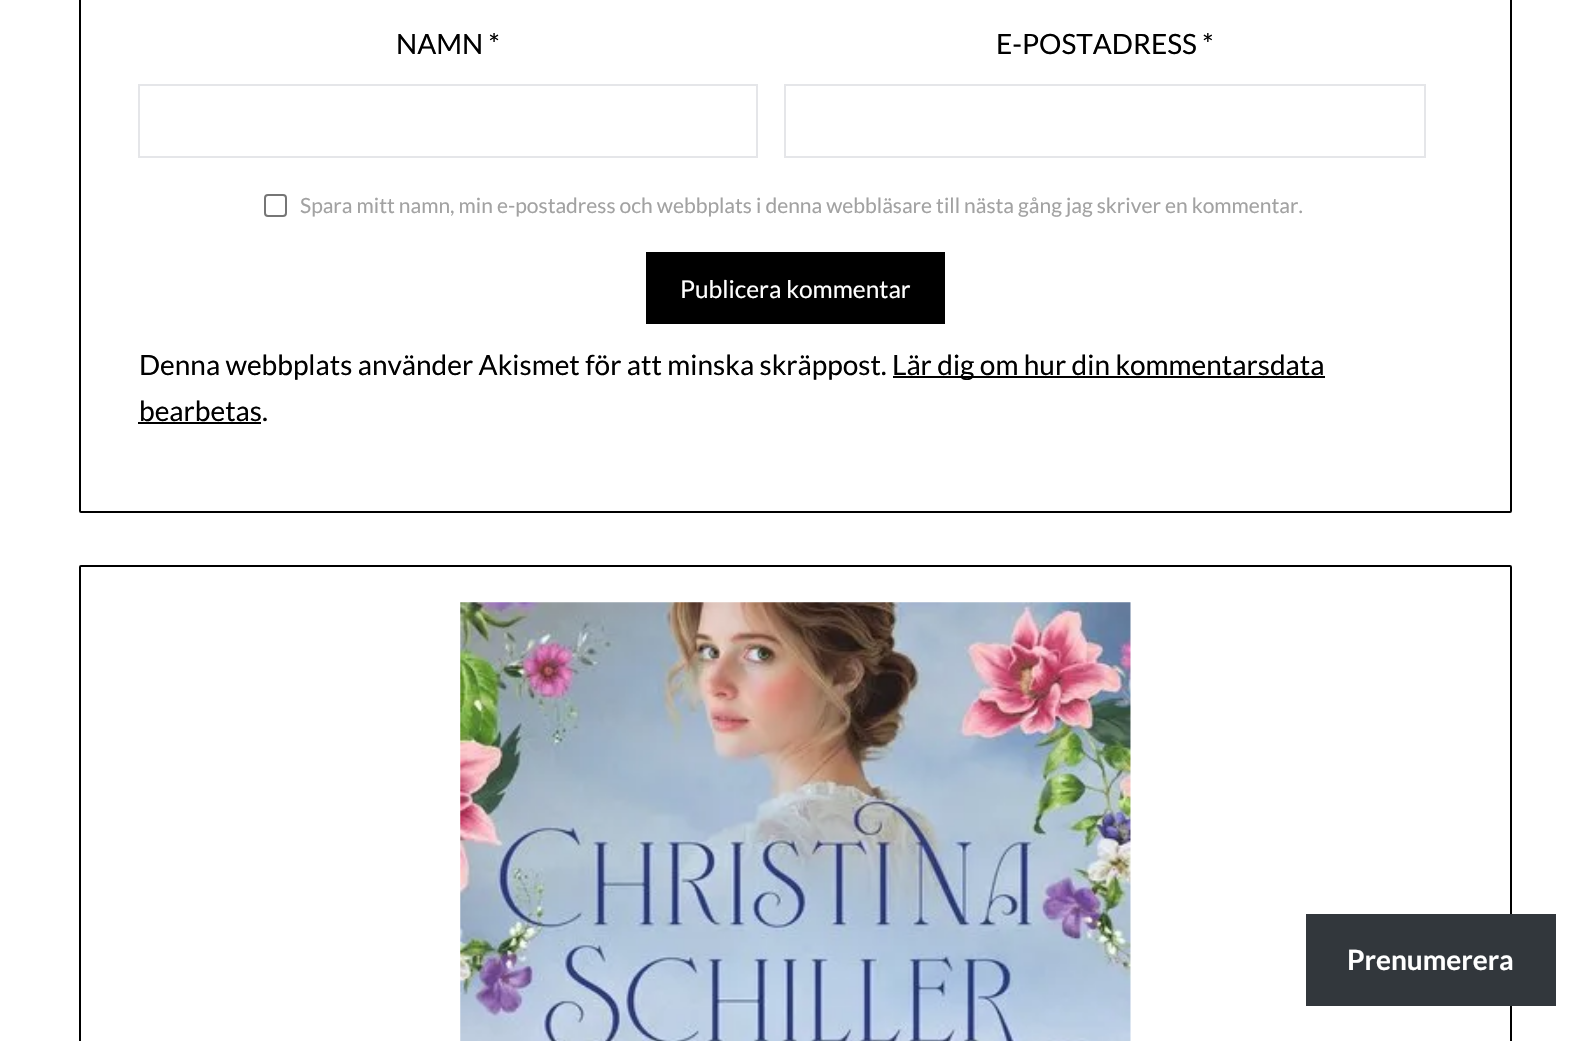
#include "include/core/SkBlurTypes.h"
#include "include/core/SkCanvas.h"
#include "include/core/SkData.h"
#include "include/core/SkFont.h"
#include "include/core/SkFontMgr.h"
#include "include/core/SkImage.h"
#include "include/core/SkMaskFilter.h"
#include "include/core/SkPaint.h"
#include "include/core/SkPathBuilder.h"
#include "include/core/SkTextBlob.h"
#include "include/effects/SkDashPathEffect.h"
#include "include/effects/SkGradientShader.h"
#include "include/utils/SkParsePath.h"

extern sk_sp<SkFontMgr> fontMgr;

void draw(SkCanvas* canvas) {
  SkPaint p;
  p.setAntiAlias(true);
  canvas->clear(SK_ColorWHITE);
  p.setStyle(SkPaint::kStroke_Style);
  p.setStrokeWidth(2);
  p.setColor(SK_ColorBLACK);
  canvas->drawRoundRect(SkRect::MakeLTRB(80, -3, 1511, 512), 1, 1, p);
  p.setColor(SkColorSetRGB(229, 230, 233));
  canvas->drawRect(SkRect::MakeLTRB(139, 85, 757, 157), p);
  canvas->drawRect(SkRect::MakeLTRB(785, 85, 1425, 157), p);
  p.setColor(SkColorSetRGB(118, 118, 118));
  canvas->drawRoundRect(SkRect::MakeLTRB(265, 195, 286, 216), 3, 3, p);
  p.setStyle(SkPaint::kFill_Style);
  p.setColor(SK_ColorBLACK);
  canvas->drawRect(SkRect::MakeLTRB(646, 252, 945, 324), p);
  canvas->drawRect(SkRect::MakeLTRB(893, 376, 1325, 378), p);
  canvas->drawRect(SkRect::MakeLTRB(138, 422, 261, 424), p);
  p.setStyle(SkPaint::kStroke_Style);
  canvas->drawRoundRect(SkRect::MakeLTRB(80, 566, 1511, 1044), 1, 1, p);
  canvas->drawImageRect(SkImages::DeferredFromEncodedData(SkData::MakeFromFileName("images/1.png")), SkRect::MakeLTRB(460, 602, 1131, 1041), SkSamplingOptions());
  p.setStyle(SkPaint::kFill_Style);
  p.setColor(SkColorSetRGB(50, 55, 60));
  canvas->drawRect(SkRect::MakeLTRB(1306, 914, 1556, 1006), p);
  SkFont font1(fontMgr->matchFamilyStyle("Lato", SkFontStyle::Normal()), 28);
  font1.setSubpixel(true);
  p.setColor(SK_ColorBLACK);
  canvas->drawString("NAMN *", 396, 54, font1, p);
  canvas->drawString("E-POSTADRESS *", 996, 54, font1, p);
  SkFont font2(fontMgr->matchFamilyStyle("Lato", SkFontStyle::Normal()), 21);
  font2.setSubpixel(true);
  p.setColor(SkColorSetRGB(162, 162, 162));
  canvas->drawString("Spara mitt namn, min e-postadress och webbplats i denna webbläsare till nästa gång jag skriver en kommentar.", 300, 213, font2, p);
  SkFont font3(fontMgr->matchFamilyStyle("Lato", SkFontStyle::Normal()), 24.5f);
  font3.setSubpixel(true);
  p.setColor(SK_ColorWHITE);
  canvas->drawString("Publicera kommentar", 680, 298, font3, p);
  p.setColor(SK_ColorBLACK);
  canvas->drawString("Denna webbplats använder Akismet för att minska skräppost.", 139, 375, font1, p);
  canvas->drawString("Lär dig om hur din kommentarsdata", 892, 375, font1, p);
  canvas->drawString("bearbetas.", 139, 421, font1, p);
  SkFont font4(fontMgr->matchFamilyStyle("Lato", SkFontStyle::Bold()), 28);
  font4.setSubpixel(true);
  p.setColor(SK_ColorWHITE);
  canvas->drawString("Prenumerera", 1347, 970, font4, p);
}
